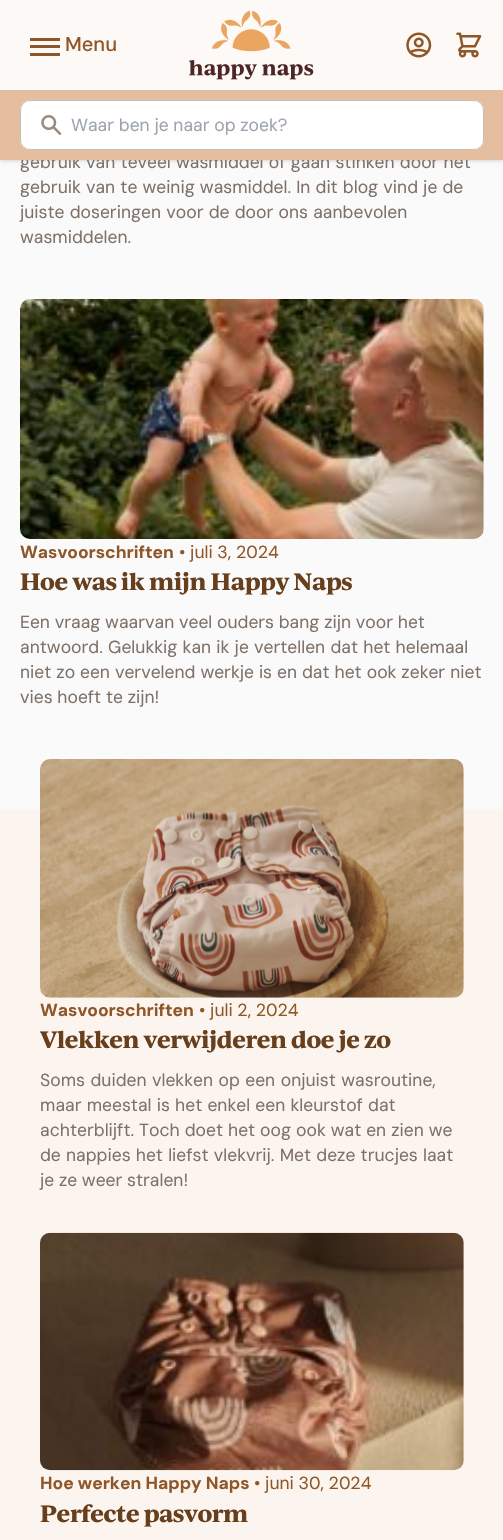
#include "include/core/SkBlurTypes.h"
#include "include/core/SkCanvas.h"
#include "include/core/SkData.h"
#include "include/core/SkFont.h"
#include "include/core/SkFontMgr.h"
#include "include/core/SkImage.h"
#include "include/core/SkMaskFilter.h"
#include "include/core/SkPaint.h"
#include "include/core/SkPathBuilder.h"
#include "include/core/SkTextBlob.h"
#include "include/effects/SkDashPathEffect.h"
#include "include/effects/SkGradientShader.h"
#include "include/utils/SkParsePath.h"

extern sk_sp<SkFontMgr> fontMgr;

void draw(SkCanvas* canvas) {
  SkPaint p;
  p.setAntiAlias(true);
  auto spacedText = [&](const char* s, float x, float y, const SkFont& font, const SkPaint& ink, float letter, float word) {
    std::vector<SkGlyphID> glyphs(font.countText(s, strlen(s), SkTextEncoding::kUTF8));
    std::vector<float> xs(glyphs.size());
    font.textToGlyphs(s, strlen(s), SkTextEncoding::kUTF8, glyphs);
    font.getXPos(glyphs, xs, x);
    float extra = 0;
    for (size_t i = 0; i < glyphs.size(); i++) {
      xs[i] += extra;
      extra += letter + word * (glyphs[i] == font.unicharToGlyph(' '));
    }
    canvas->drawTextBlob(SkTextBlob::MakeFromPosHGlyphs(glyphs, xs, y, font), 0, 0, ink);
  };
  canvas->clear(SkColorSetRGB(250, 250, 250));
  p.setColor(SkColorSetARGB(26, 0, 0, 0));
  p.setMaskFilter(SkMaskFilter::MakeBlur(kNormal_SkBlurStyle, 1));
  canvas->drawRect(SkRect::MakeLTRB(1, 3, 503, 160), p);
  p.setMaskFilter(nullptr);
  p.setMaskFilter(SkMaskFilter::MakeBlur(kNormal_SkBlurStyle, 2));
  canvas->drawRect(SkRect::MakeLTRB(0, 1, 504, 161), p);
  p.setMaskFilter(nullptr);
  p.setColor(SkColorSetRGB(253, 249, 247));
  canvas->drawRect(SkRect::MakeLTRB(0, 0, 503, 90), p);
  p.setColor(SkColorSetRGB(143, 87, 40));
  canvas->drawRect(SkRect::MakeLTRB(30, 45, 60, 48), p);
  canvas->drawRect(SkRect::MakeLTRB(30, 38, 60, 41), p);
  canvas->drawRect(SkRect::MakeLTRB(30, 53, 60, 56), p);
  canvas->drawImageRect(SkImages::DeferredFromEncodedData(SkData::MakeFromFileName("images/1.png")), SkRect::MakeLTRB(189, 10, 314, 80), SkSamplingOptions());
  canvas->drawImageRect(SkImages::DeferredFromEncodedData(SkData::MakeFromFileName("images/2.png")), SkRect::MakeLTRB(406, 32, 432, 58), SkSamplingOptions());
  canvas->drawImageRect(SkImages::DeferredFromEncodedData(SkData::MakeFromFileName("images/3.png")), SkRect::MakeLTRB(456, 32, 482, 58), SkSamplingOptions());
  canvas->drawImageRect(SkImages::DeferredFromEncodedData(SkData::MakeFromFileName("images/5.png")), SkRect::MakeLTRB(20, 299, 484, 539), SkSamplingOptions());
  p.setColor(SkColorSetRGB(251, 244, 239));
  canvas->drawRect(SkRect::MakeLTRB(0, 809, 503, 1540), p);
  canvas->drawImageRect(SkImages::DeferredFromEncodedData(SkData::MakeFromFileName("images/6.png")), SkRect::MakeLTRB(40, 759, 464, 998), SkSamplingOptions());
  canvas->drawImageRect(SkImages::DeferredFromEncodedData(SkData::MakeFromFileName("images/7.png")), SkRect::MakeLTRB(40, 1232, 464, 1471), SkSamplingOptions());
  SkFont font1(fontMgr->matchFamilyStyle("DM Sans", SkFontStyle(500, SkFontStyle::kNormal_Width, SkFontStyle::kUpright_Slant)), 20);
  font1.setSubpixel(true);
  p.setColor(SkColorSetRGB(143, 87, 40));
  canvas->drawString("Menu", 65, 51, font1, p);
  SkFont font2(fontMgr->matchFamilyStyle("DM Sans", SkFontStyle::Normal()), 17.5f);
  font2.setSubpixel(true);
  p.setColor(SkColorSetRGB(127, 113, 104));
  spacedText("gebruik van teveel wasmiddel of gaan stinken door het", 20, 168, font2, p, 0, 0.5f);
  p.setColor(SkColorSetRGB(228, 190, 159));
  canvas->drawRect(SkRect::MakeLTRB(0, 90, 503, 160), p);
  p.setColor(SK_ColorWHITE);
  canvas->drawRoundRect(SkRect::MakeLTRB(20, 100, 484, 150), 10, 10, p);
  canvas->drawImageRect(SkImages::DeferredFromEncodedData(SkData::MakeFromFileName("images/4.png")), SkRect::MakeLTRB(41, 115, 62, 135), SkSamplingOptions());
  p.setStyle(SkPaint::kStroke_Style);
  p.setStrokeWidth(1);
  p.setColor(SkColorSetRGB(197, 191, 185));
  canvas->drawRoundRect(SkRect::MakeLTRB(20.5f, 100.5f, 483.5f, 149.5f), 9.5f, 9.5f, p);
  p.setStyle(SkPaint::kFill_Style);
  p.setColor(SkColorSetRGB(156, 163, 175));
  canvas->drawString("Waar ben je naar op zoek?", 71, 131, font2, p);
  p.setColor(SkColorSetRGB(127, 113, 104));
  spacedText("gebruik van te weinig wasmiddel. In dit blog vind je de", 20, 193, font2, p, 0, 0.4f);
  spacedText("juiste doseringen voor de door ons aanbevolen", 20, 218, font2, p, 0, 0.5f);
  canvas->drawString("wasmiddelen.", 20, 243, font2, p);
  SkFont font3(fontMgr->matchFamilyStyle("DM Sans", SkFontStyle::Bold()), 17.5f);
  font3.setSubpixel(true);
  p.setColor(SkColorSetRGB(143, 87, 40));
  canvas->drawString("Wasvoorschriften", 20, 558, font3, p);
  canvas->drawString("• juli 3, 2024", 179, 558, font2, p);
  SkFont font4(fontMgr->matchFamilyStyle("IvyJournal", SkFontStyle::Bold()), 22.5f);
  font4.setSubpixel(true);
  p.setColor(SkColorSetRGB(103, 63, 29));
  spacedText("Hoe was ik mijn Happy Naps", 20, 590, font4, p, -0.45f, 0);
  p.setColor(SkColorSetRGB(127, 113, 104));
  canvas->drawString("Een vraag waarvan veel ouders bang zijn voor het", 20, 628, font2, p);
  spacedText("antwoord. Gelukkig kan ik je vertellen dat het helemaal", 20, 653, font2, p, 0, 0.5f);
  spacedText("niet zo een vervelend werkje is en dat het ook zeker niet", 20, 678, font2, p, 0, 0.25f);
  canvas->drawString("vies hoeft te zijn!", 20, 703, font2, p);
  p.setColor(SkColorSetRGB(143, 87, 40));
  canvas->drawString("Wasvoorschriften", 40, 1016, font3, p);
  canvas->drawString("• juli 2, 2024", 199, 1016, font2, p);
  p.setColor(SkColorSetRGB(103, 63, 29));
  spacedText("Vlekken verwijderen doe je zo", 40, 1048, font4, p, -0.45f, 0);
  p.setColor(SkColorSetRGB(127, 113, 104));
  spacedText("Soms duiden vlekken op een onjuist wasroutine,", 40, 1086, font2, p, 0, 0.75f);
  spacedText("maar meestal is het enkel een kleurstof dat", 40, 1111, font2, p, 0, 0.5f);
  spacedText("achterblijft. Toch doet het oog ook wat en zien we", 40, 1136, font2, p, 0, 0.25f);
  spacedText("de nappies het liefst vlekvrij. Met deze trucjes laat", 40, 1161, font2, p, 0, 0.5f);
  canvas->drawString("je ze weer stralen!", 40, 1186, font2, p);
  p.setColor(SkColorSetRGB(143, 87, 40));
  canvas->drawString("Hoe werken Happy Naps", 40, 1489, font3, p);
  canvas->drawString("• juni 30, 2024", 254, 1489, font2, p);
  p.setColor(SkColorSetRGB(103, 63, 29));
  spacedText("Perfecte pasvorm", 40, 1522, font4, p, -0.45f, 0);
}
